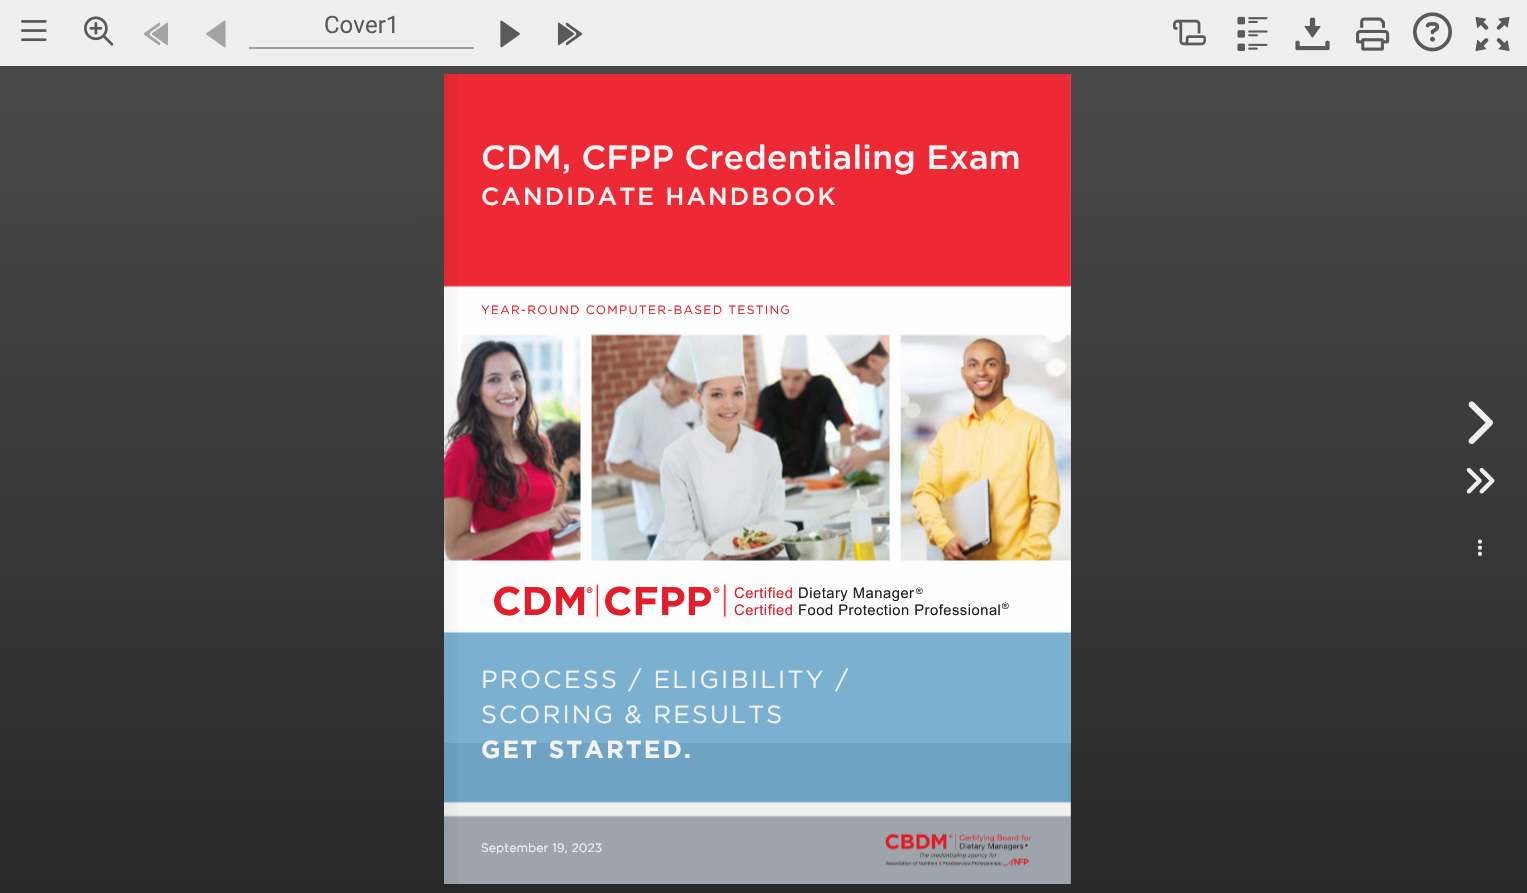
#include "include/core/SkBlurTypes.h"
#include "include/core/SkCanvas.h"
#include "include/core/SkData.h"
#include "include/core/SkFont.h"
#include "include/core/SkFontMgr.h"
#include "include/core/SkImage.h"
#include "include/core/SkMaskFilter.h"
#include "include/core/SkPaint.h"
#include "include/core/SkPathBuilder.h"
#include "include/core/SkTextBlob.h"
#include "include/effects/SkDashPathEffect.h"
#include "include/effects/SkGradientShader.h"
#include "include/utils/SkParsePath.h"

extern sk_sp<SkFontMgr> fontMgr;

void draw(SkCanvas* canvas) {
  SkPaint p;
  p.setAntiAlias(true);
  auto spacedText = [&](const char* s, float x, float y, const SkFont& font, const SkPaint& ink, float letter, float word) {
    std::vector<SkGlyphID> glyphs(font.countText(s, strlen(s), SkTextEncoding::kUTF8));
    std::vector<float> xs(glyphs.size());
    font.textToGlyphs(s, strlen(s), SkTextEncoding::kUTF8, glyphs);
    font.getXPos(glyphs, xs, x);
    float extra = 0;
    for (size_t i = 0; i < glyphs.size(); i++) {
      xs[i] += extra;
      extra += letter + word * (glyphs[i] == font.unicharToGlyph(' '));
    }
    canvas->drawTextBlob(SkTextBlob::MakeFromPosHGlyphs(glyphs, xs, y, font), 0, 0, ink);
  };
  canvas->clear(SK_ColorWHITE);
  {
    const SkColor colors[] = {SkColorSetRGB(76, 76, 76), SkColorSetRGB(41, 41, 41)};
    const float stops[] = {0, 1};
    const SkPoint ends[] = {{763, 0}, {764, 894}};
    p.setShader(SkGradientShader::MakeLinear(ends, colors, stops, 2, SkTileMode::kClamp));
    p.setAlpha(255);
  }
  canvas->drawRect(SkRect::MakeLTRB(0, 66, 1527, 893), p);
  p.setShader(nullptr);
  p.setColor(SkColorSetRGB(239, 239, 239));
  canvas->drawRect(SkRect::MakeLTRB(0, 0, 1527, 66), p);
  canvas->drawImageRect(SkImages::DeferredFromEncodedData(SkData::MakeFromFileName("images/1.png")), SkRect::MakeLTRB(21, 20, 47, 42), SkSamplingOptions());
  canvas->drawImageRect(SkImages::DeferredFromEncodedData(SkData::MakeFromFileName("images/2.png")), SkRect::MakeLTRB(84, 16, 114, 46), SkSamplingOptions());
  canvas->drawImageRect(SkImages::DeferredFromEncodedData(SkData::MakeFromFileName("images/3.png")), SkRect::MakeLTRB(143, 22, 168, 46), SkSamplingOptions());
  canvas->drawImageRect(SkImages::DeferredFromEncodedData(SkData::MakeFromFileName("images/4.png")), SkRect::MakeLTRB(206, 20, 226, 48), SkSamplingOptions());
  p.setColor(SkColorSetRGB(158, 158, 158));
  canvas->drawRect(SkRect::MakeLTRB(249, 47, 474, 49), p);
  canvas->drawImageRect(SkImages::DeferredFromEncodedData(SkData::MakeFromFileName("images/5.png")), SkRect::MakeLTRB(500, 20, 520, 48), SkSamplingOptions());
  canvas->drawImageRect(SkImages::DeferredFromEncodedData(SkData::MakeFromFileName("images/6.png")), SkRect::MakeLTRB(557, 22, 583, 46), SkSamplingOptions());
  canvas->drawImageRect(SkImages::DeferredFromEncodedData(SkData::MakeFromFileName("images/7.png")), SkRect::MakeLTRB(1173, 19, 1206, 46), SkSamplingOptions());
  canvas->drawImageRect(SkImages::DeferredFromEncodedData(SkData::MakeFromFileName("images/8.png")), SkRect::MakeLTRB(1237, 16, 1268, 51), SkSamplingOptions());
  canvas->drawImageRect(SkImages::DeferredFromEncodedData(SkData::MakeFromFileName("images/9.png")), SkRect::MakeLTRB(1295, 17, 1330, 51), SkSamplingOptions());
  canvas->drawImageRect(SkImages::DeferredFromEncodedData(SkData::MakeFromFileName("images/10.png")), SkRect::MakeLTRB(1356, 17, 1390, 51), SkSamplingOptions());
  canvas->drawImageRect(SkImages::DeferredFromEncodedData(SkData::MakeFromFileName("images/11.png")), SkRect::MakeLTRB(1413, 12, 1452, 52), SkSamplingOptions());
  canvas->drawImageRect(SkImages::DeferredFromEncodedData(SkData::MakeFromFileName("images/12.png")), SkRect::MakeLTRB(1475, 16, 1510, 51), SkSamplingOptions());
  canvas->drawImageRect(SkImages::DeferredFromEncodedData(SkData::MakeFromFileName("images/13.png")), SkRect::MakeLTRB(444, 74, 1071, 743), SkSamplingOptions());
  canvas->drawImageRect(SkImages::DeferredFromEncodedData(SkData::MakeFromFileName("images/14.png")), SkRect::MakeLTRB(444, 74, 1071, 884), SkSamplingOptions());
  {
    const SkColor colors[] = {SkColorSetARGB(0, 0, 0, 0), SkColorSetARGB(10, 0, 0, 0)};
    const float stops[] = {0.95f, 1};
    const SkPoint ends[] = {{1071, 480}, {444, 480}};
    p.setShader(SkGradientShader::MakeLinear(ends, colors, stops, 2, SkTileMode::kClamp));
    p.setAlpha(255);
  }
  canvas->drawRect(SkRect::MakeLTRB(444, 74, 458, 884), p);
  canvas->drawImageRect(SkImages::DeferredFromEncodedData(SkData::MakeFromFileName("images/15.png")), SkRect::MakeLTRB(1468, 401, 1493, 444), SkSamplingOptions());
  canvas->drawImageRect(SkImages::DeferredFromEncodedData(SkData::MakeFromFileName("images/16.png")), SkRect::MakeLTRB(1466, 467, 1495, 494), SkSamplingOptions());
  canvas->drawImageRect(SkImages::DeferredFromEncodedData(SkData::MakeFromFileName("images/17.png")), SkRect::MakeLTRB(1477, 539, 1482, 556), SkSamplingOptions());
  SkFont font1(fontMgr->matchFamilyStyle("Roboto", SkFontStyle::Normal()), 24);
  font1.setSubpixel(true);
  p.setShader(nullptr);
  p.setColor(SkColorSetRGB(90, 90, 90));
  canvas->drawString("Cover1", 324, 33, font1, p);
  SkFont font2(fontMgr->matchFamilyStyle("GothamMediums", SkFontStyle(500, SkFontStyle::kNormal_Width, SkFontStyle::kUpright_Slant)), 33.5f);
  font2.setSubpixel(true);
  p.setColor(SkColorSetRGB(243, 243, 243));
  spacedText("CDM, CFPP Credentialing Exam", 481, 169, font2, p, 0.3f, 0);
  SkFont font3(fontMgr->matchFamilyStyle("GothamMediums", SkFontStyle(500, SkFontStyle::kNormal_Width, SkFontStyle::kUpright_Slant)), 24.75f);
  font3.setSubpixel(true);
  spacedText("CANDIDATE HANDBOOK", 481, 205, font3, p, 2.1f, 0);
  SkFont font4(fontMgr->matchFamilyStyle("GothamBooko", SkFontStyle::Normal()), 12.1f);
  font4.setSubpixel(true);
  p.setColor(SkColorSetRGB(227, 30, 42));
  spacedText("YEAR-ROUND COMPUTER-BASED TESTING", 481, 314, font4, p, 1.25f, 0);
  SkFont font5(fontMgr->matchFamilyStyle("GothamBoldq", SkFontStyle::Bold()), 40);
  font5.setSubpixel(true);
  canvas->drawString("CDM", 492, 615, font5, p);
  SkFont font6(fontMgr->matchFamilyStyle("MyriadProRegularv", SkFontStyle::Normal()), 17);
  font6.setSubpixel(true);
  canvas->drawString("®", 586, 599, font6, p);
  canvas->drawString("CFPP", 603, 615, font5, p);
  canvas->drawString("®", 713, 599, font6, p);
  SkFont font7(fontMgr->matchFamilyStyle("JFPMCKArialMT", SkFontStyle::Normal()), 14.75f);
  font7.setSubpixel(true);
  spacedText("Certified", 734, 598, font7, p, 0.5f, 0);
  p.setColor(SkColorSetRGB(36, 32, 33));
  spacedText("Dietary Manager", 798, 598, font7, p, 0.5f, 0);
  SkFont font8(fontMgr->matchFamilyStyle("JFPMCKArialMT", SkFontStyle::Normal()), 9);
  font8.setSubpixel(true);
  canvas->drawString("®", 916, 594, font8, p);
  p.setColor(SkColorSetRGB(227, 30, 42));
  spacedText("Certified", 734, 615, font7, p, 0.5f, 0);
  p.setColor(SkColorSetRGB(36, 32, 33));
  spacedText("Food Protection Professional", 798, 615, font7, p, 0.5f, 0);
  canvas->drawString("®", 1002, 609, font8, p);
  SkFont font9(fontMgr->matchFamilyStyle("GothamBooko", SkFontStyle::Normal()), 24.75f);
  font9.setSubpixel(true);
  p.setColor(SkColorSetRGB(243, 243, 243));
  spacedText("PROCESS / ELIGIBILITY /", 481, 688, font9, p, 2.3f, 0);
  spacedText("SCORING & RESULTS", 481, 723, font9, p, 2.1f, 0);
  SkFont font10(fontMgr->matchFamilyStyle("GothamBoldq", SkFontStyle::Bold()), 24.75f);
  font10.setSubpixel(true);
  spacedText("GET STARTED.", 481, 758, font10, p, 2, 0);
  spacedText("September 19, 2023", 481, 852, font4, p, 0.1f, 0);
  SkFont font11(fontMgr->matchFamilyStyle("MyriadProRegularv", SkFontStyle::Normal()), 7);
  font11.setSubpixel(true);
  p.setColor(SkColorSetRGB(3, 3, 3));
  canvas->drawString("®", 1025, 849, font11, p);
}
